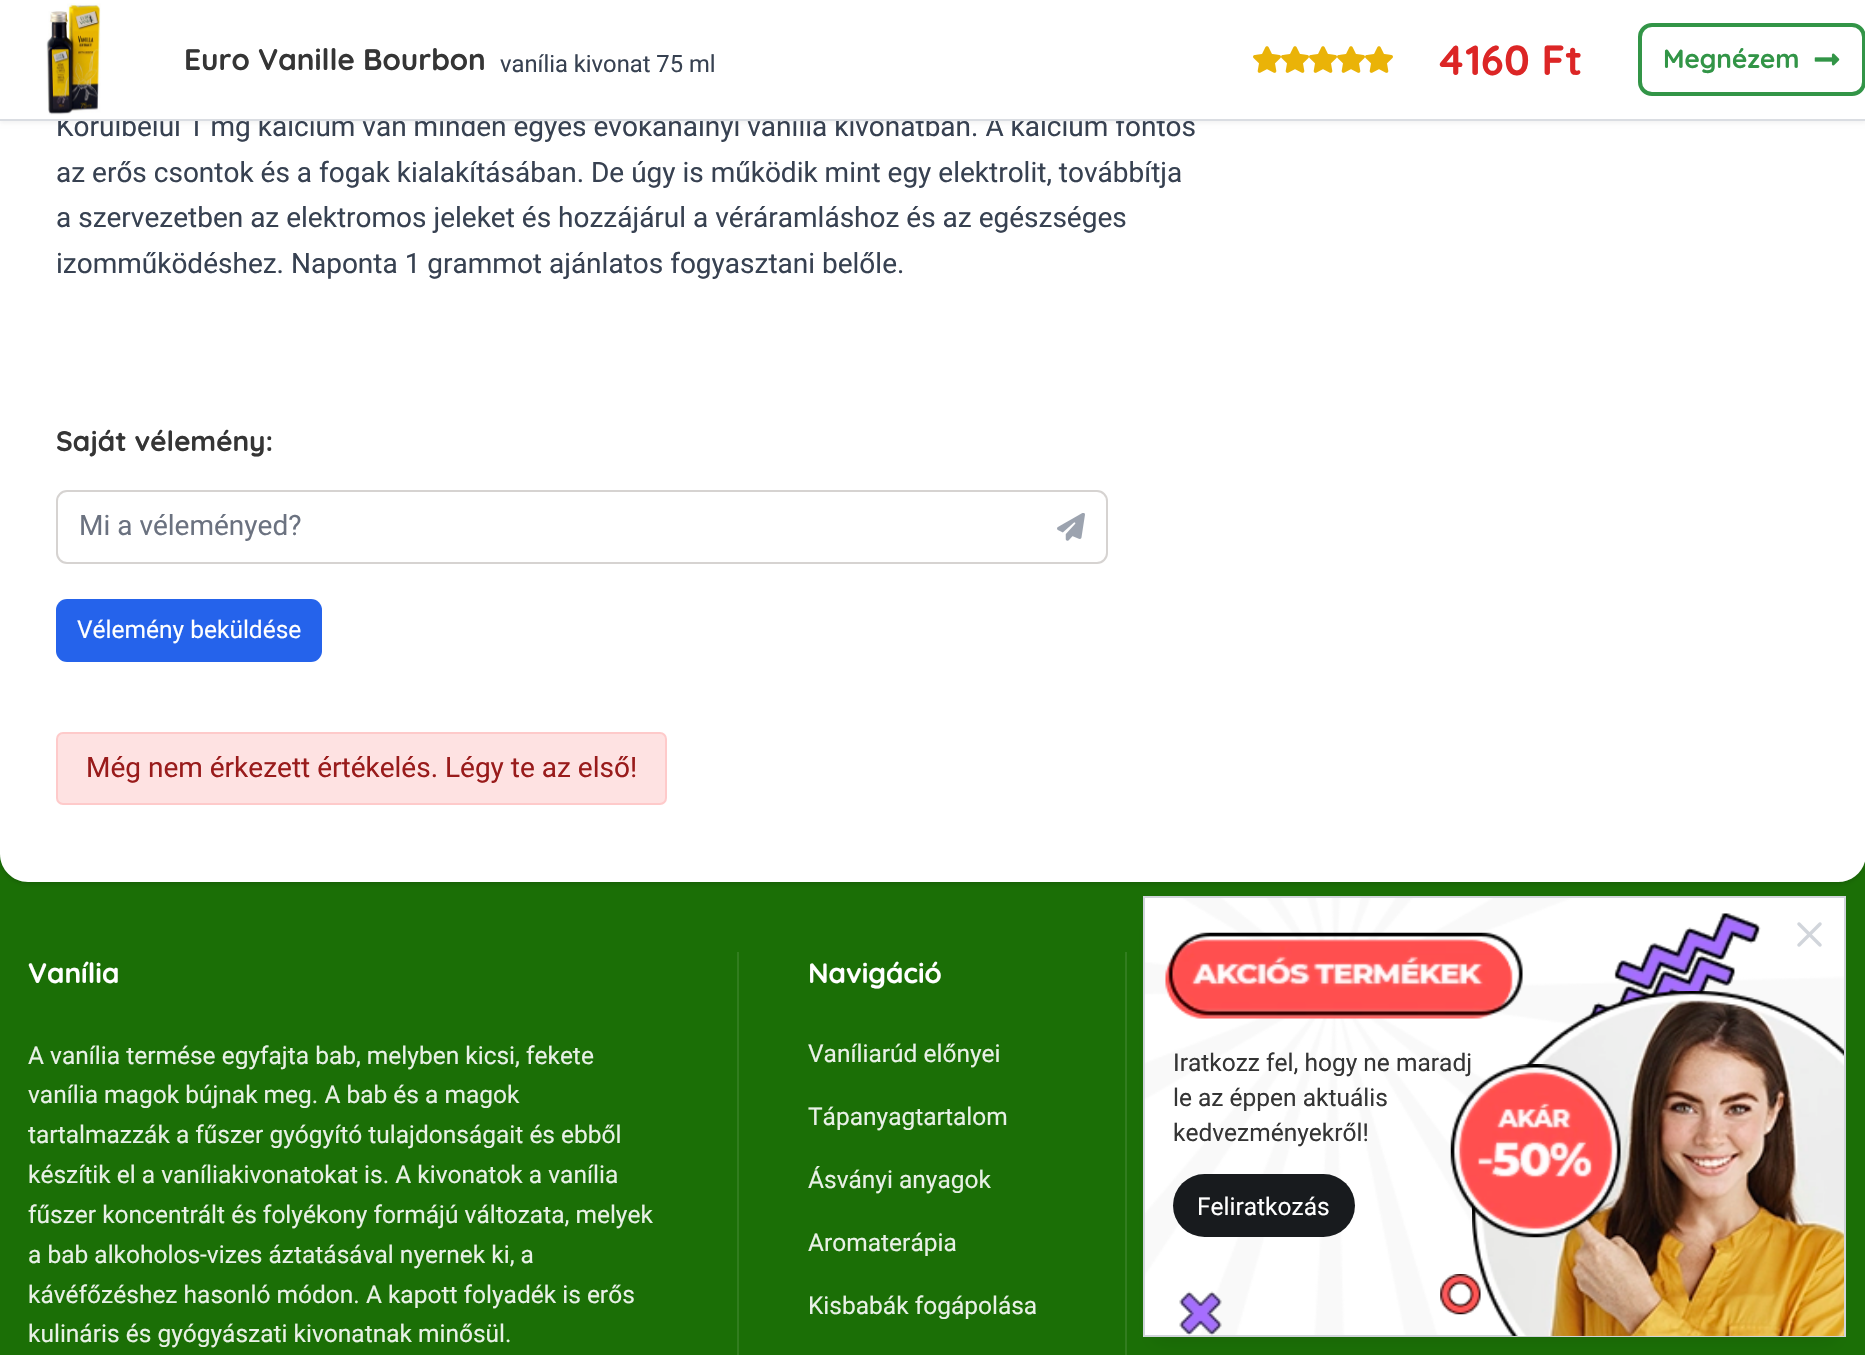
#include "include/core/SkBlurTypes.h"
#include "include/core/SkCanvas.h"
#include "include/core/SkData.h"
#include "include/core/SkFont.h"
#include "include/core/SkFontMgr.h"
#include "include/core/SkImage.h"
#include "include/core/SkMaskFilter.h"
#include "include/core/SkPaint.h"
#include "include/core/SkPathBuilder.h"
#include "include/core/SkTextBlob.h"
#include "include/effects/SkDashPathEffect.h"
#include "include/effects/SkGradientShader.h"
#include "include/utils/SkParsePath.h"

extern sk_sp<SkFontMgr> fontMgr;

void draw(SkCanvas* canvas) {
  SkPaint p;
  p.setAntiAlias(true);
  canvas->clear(SkColorSetRGB(27, 111, 6));
  p.setColor(SkColorSetARGB(26, 0, 0, 0));
  p.setMaskFilter(SkMaskFilter::MakeBlur(kNormal_SkBlurStyle, 2));
  canvas->drawRoundRect(SkRect::MakeLTRB(2, -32, 1864, 882), 26, 26, p);
  p.setMaskFilter(nullptr);
  p.setMaskFilter(SkMaskFilter::MakeBlur(kNormal_SkBlurStyle, 2.5f));
  canvas->drawRoundRect(SkRect::MakeLTRB(0, -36, 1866, 884), 28, 28, p);
  p.setMaskFilter(nullptr);
  p.setColor(SK_ColorWHITE);
  canvas->drawPath(SkPathBuilder().moveTo(0, -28).lineTo(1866, -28).lineTo(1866, 854).cubicTo(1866, 869.5f, 1853.5f, 882, 1838, 882).lineTo(28, 882).cubicTo(12.5f, 882, 0, 869.5f, 0, 854).close().detach(), p);
  p.setColor(SkColorSetARGB(13, 0, 0, 0));
  p.setMaskFilter(SkMaskFilter::MakeBlur(kNormal_SkBlurStyle, 2));
  canvas->drawRect(SkRect::MakeLTRB(0, 2, 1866, 123), p);
  p.setMaskFilter(nullptr);
  p.setStyle(SkPaint::kStroke_Style);
  p.setStrokeWidth(2);
  p.setColor(SkColorSetRGB(214, 211, 209));
  canvas->drawRoundRect(SkRect::MakeLTRB(57, 491, 1107, 563), 10, 10, p);
  canvas->drawImageRect(SkImages::DeferredFromEncodedData(SkData::MakeFromFileName("images/4.png")), SkRect::MakeLTRB(1057, 513, 1085, 541), SkSamplingOptions());
  p.setStyle(SkPaint::kFill_Style);
  p.setColor(SkColorSetRGB(37, 99, 235));
  canvas->drawRoundRect(SkRect::MakeLTRB(56, 599, 322, 662), 11, 11, p);
  p.setColor(SkColorSetRGB(254, 226, 226));
  canvas->drawRoundRect(SkRect::MakeLTRB(57, 733, 666, 804), 6, 6, p);
  p.setStyle(SkPaint::kStroke_Style);
  p.setColor(SkColorSetRGB(254, 202, 202));
  canvas->drawRoundRect(SkRect::MakeLTRB(57, 733, 666, 804), 6, 6, p);
  p.setStyle(SkPaint::kFill_Style);
  p.setColor(SkColorSetRGB(50, 125, 31));
  canvas->drawRect(SkRect::MakeLTRB(737, 952, 739, 1355), p);
  canvas->drawRect(SkRect::MakeLTRB(1125, 952, 1127, 1355), p);
  p.setColor(SkColorSetARGB(26, 0, 0, 0));
  p.setMaskFilter(SkMaskFilter::MakeBlur(kNormal_SkBlurStyle, 9));
  canvas->drawRect(SkRect::MakeLTRB(1155, 922, 1834, 1339), p);
  p.setMaskFilter(nullptr);
  p.setColor(SK_ColorWHITE);
  canvas->drawRect(SkRect::MakeLTRB(1145, 898, 1844, 1335), p);
  canvas->drawImageRect(SkImages::DeferredFromEncodedData(SkData::MakeFromFileName("images/5.png")), SkRect::MakeLTRB(1145, 898, 1844, 1335), SkSamplingOptions());
  p.setStyle(SkPaint::kStroke_Style);
  p.setColor(SkColorSetRGB(209, 213, 219));
  canvas->drawRect(SkRect::MakeLTRB(1144, 897, 1845, 1336), p);
  canvas->drawImageRect(SkImages::DeferredFromEncodedData(SkData::MakeFromFileName("images/6.png")), SkRect::MakeLTRB(1165, 932, 1523, 1019), SkSamplingOptions());
  canvas->drawImageRect(SkImages::DeferredFromEncodedData(SkData::MakeFromFileName("images/7.png")), SkRect::MakeLTRB(1589, 913, 1761, 1018), SkSamplingOptions());
  canvas->drawImageRect(SkImages::DeferredFromEncodedData(SkData::MakeFromFileName("images/8.png")), SkRect::MakeLTRB(1797, 922, 1822, 947), SkSamplingOptions());
  canvas->drawImageRect(SkImages::DeferredFromEncodedData(SkData::MakeFromFileName("images/9.png")), SkRect::MakeLTRB(1472, 991, 1844, 1336), SkSamplingOptions());
  p.setStyle(SkPaint::kFill_Style);
  p.setColor(SkColorSetRGB(24, 27, 30));
  canvas->drawRoundRect(SkRect::MakeLTRB(1173, 1174, 1355, 1237), 31.5f, 31.5f, p);
  canvas->drawImageRect(SkImages::DeferredFromEncodedData(SkData::MakeFromFileName("images/11.png")), SkRect::MakeLTRB(1179, 1291, 1222, 1336), SkSamplingOptions());
  canvas->drawImageRect(SkImages::DeferredFromEncodedData(SkData::MakeFromFileName("images/12.png")), SkRect::MakeLTRB(1440, 1274, 1481, 1315), SkSamplingOptions());
  SkFont font1(fontMgr->matchFamilyStyle("Roboto", SkFontStyle::Normal()), 28);
  font1.setSubpixel(true);
  p.setColor(SkColorSetRGB(55, 65, 81));
  canvas->drawString("Körülbelül 1 mg kalcium van minden egyes evőkanálnyi vanília kivonatban. A kalcium fontos", 56, 136, font1, p);
  p.setColor(SK_ColorWHITE);
  canvas->drawRect(SkRect::MakeLTRB(0, 0, 1865, 119), p);
  p.setStyle(SkPaint::kStroke_Style);
  p.setStrokeWidth(4);
  p.setColor(SkColorSetRGB(50, 149, 71));
  canvas->drawRoundRect(SkRect::MakeLTRB(1640, 25, 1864, 94), 12, 12, p);
  canvas->drawImageRect(SkImages::DeferredFromEncodedData(SkData::MakeFromFileName("images/3.png")), SkRect::MakeLTRB(1814, 53, 1840, 66), SkSamplingOptions());
  canvas->drawImageRect(SkImages::DeferredFromEncodedData(SkData::MakeFromFileName("images/2.png")), SkRect::MakeLTRB(1365, 46, 1393, 73), SkSamplingOptions());
  canvas->drawImageRect(SkImages::DeferredFromEncodedData(SkData::MakeFromFileName("images/2.png")), SkRect::MakeLTRB(1337, 46, 1365, 73), SkSamplingOptions());
  canvas->drawImageRect(SkImages::DeferredFromEncodedData(SkData::MakeFromFileName("images/2.png")), SkRect::MakeLTRB(1309, 46, 1337, 73), SkSamplingOptions());
  canvas->drawImageRect(SkImages::DeferredFromEncodedData(SkData::MakeFromFileName("images/2.png")), SkRect::MakeLTRB(1281, 46, 1309, 73), SkSamplingOptions());
  canvas->drawImageRect(SkImages::DeferredFromEncodedData(SkData::MakeFromFileName("images/2.png")), SkRect::MakeLTRB(1253, 46, 1281, 73), SkSamplingOptions());
  SkFont font2(fontMgr->matchFamilyStyle("Quicksand", SkFontStyle::Bold()), 26.25f);
  font2.setSubpixel(true);
  p.setStyle(SkPaint::kFill_Style);
  canvas->drawString("Megnézem", 1663, 68, font2, p);
  SkFont font3(fontMgr->matchFamilyStyle("Quicksand", SkFontStyle::Bold()), 42);
  font3.setSubpixel(true);
  p.setColor(SkColorSetRGB(220, 38, 38));
  canvas->drawString("4160 Ft", 1436, 75, font3, p);
  SkFont font4(fontMgr->matchFamilyStyle("Roboto", SkFontStyle::Normal()), 23.75f);
  font4.setSubpixel(true);
  p.setColor(SkColorSetRGB(55, 65, 81));
  canvas->drawString("vanília kivonat 75 ml", 500, 72, font4, p);
  SkFont font5(fontMgr->matchFamilyStyle("Quicksand", SkFontStyle::Bold()), 29.75f);
  font5.setSubpixel(true);
  p.setColor(SkColorSetRGB(53, 53, 53));
  canvas->drawString("Euro Vanille Bourbon", 184, 70, font5, p);
  canvas->drawImageRect(SkImages::DeferredFromEncodedData(SkData::MakeFromFileName("images/1.png")), SkRect::MakeLTRB(46, 3, 101, 115), SkSamplingOptions());
  p.setColor(SkColorSetRGB(218, 221, 226));
  canvas->drawRect(SkRect::MakeLTRB(0, 119, 1865, 121), p);
  p.setColor(SkColorSetRGB(55, 65, 81));
  canvas->drawString("az erős csontok és a fogak kialakításában. De úgy is működik mint egy elektrolit, továbbítja", 56, 182, font1, p);
  canvas->drawString("a szervezetben az elektromos jeleket és hozzájárul a véráramláshoz és az egészséges", 56, 227, font1, p);
  canvas->drawString("izomműködéshez. Naponta 1 grammot ajánlatos fogyasztani belőle.", 56, 273, font1, p);
  SkFont font6(fontMgr->matchFamilyStyle("Quicksand", SkFontStyle::Bold()), 28);
  font6.setSubpixel(true);
  p.setColor(SkColorSetRGB(53, 53, 53));
  canvas->drawString("Saját vélemény:", 56, 451, font6, p);
  p.setColor(SkColorSetRGB(107, 114, 128));
  canvas->drawString("Mi a véleményed?", 79, 535, font1, p);
  SkFont font7(fontMgr->matchFamilyStyle("Roboto", SkFontStyle::Normal()), 24.5f);
  font7.setSubpixel(true);
  p.setColor(SK_ColorWHITE);
  canvas->drawString("Vélemény beküldése", 77, 638, font7, p);
  p.setColor(SkColorSetRGB(153, 27, 27));
  canvas->drawString("Még nem érkezett értékelés. Légy te az első!", 86, 777, font1, p);
  p.setColor(SK_ColorWHITE);
  canvas->drawString("Vanília", 28, 983, font6, p);
  p.setColor(SkColorSetRGB(232, 241, 230));
  canvas->drawString("A vanília termése egyfajta bab, melyben kicsi, fekete", 28, 1064, font7, p);
  canvas->drawString("vanília magok bújnak meg. A bab és a magok", 28, 1103, font7, p);
  canvas->drawString("tartalmazzák a fűszer gyógyító tulajdonságait és ebből", 28, 1143, font7, p);
  canvas->drawString("készítik el a vaníliakivonatokat is. A kivonatok a vanília", 28, 1183, font7, p);
  canvas->drawString("fűszer koncentrált és folyékony formájú változata, melyek", 28, 1223, font7, p);
  canvas->drawString("a bab alkoholos-vizes áztatásával nyernek ki, a", 28, 1263, font7, p);
  canvas->drawString("kávéfőzéshez hasonló módon. A kapott folyadék is erős", 28, 1303, font7, p);
  canvas->drawString("kulináris és gyógyászati kivonatnak minősül.", 28, 1342, font7, p);
  p.setColor(SK_ColorWHITE);
  canvas->drawString("Navigáció", 808, 983, font6, p);
  p.setColor(SkColorSetRGB(232, 241, 230));
  canvas->drawString("Vaníliarúd előnyei", 808, 1062, font7, p);
  canvas->drawString("Tápanyagtartalom", 808, 1125, font7, p);
  canvas->drawString("Ásványi anyagok", 808, 1188, font7, p);
  canvas->drawString("Aromaterápia", 808, 1251, font7, p);
  canvas->drawString("Kisbabák fogápolása", 808, 1314, font7, p);
  p.setColor(SkColorSetRGB(53, 53, 53));
  canvas->drawString("Iratkozz fel, hogy ne maradj", 1173, 1071, font7, p);
  canvas->drawString("le az éppen aktuális", 1173, 1106, font7, p);
  canvas->drawString("kedvezményekről!", 1173, 1141, font7, p);
  p.setColor(SK_ColorWHITE);
  canvas->drawString("Feliratkozás", 1197, 1215, font7, p);
  canvas->drawImageRect(SkImages::DeferredFromEncodedData(SkData::MakeFromFileName("images/10.png")), SkRect::MakeLTRB(1450, 1064, 1621, 1238), SkSamplingOptions());
}
